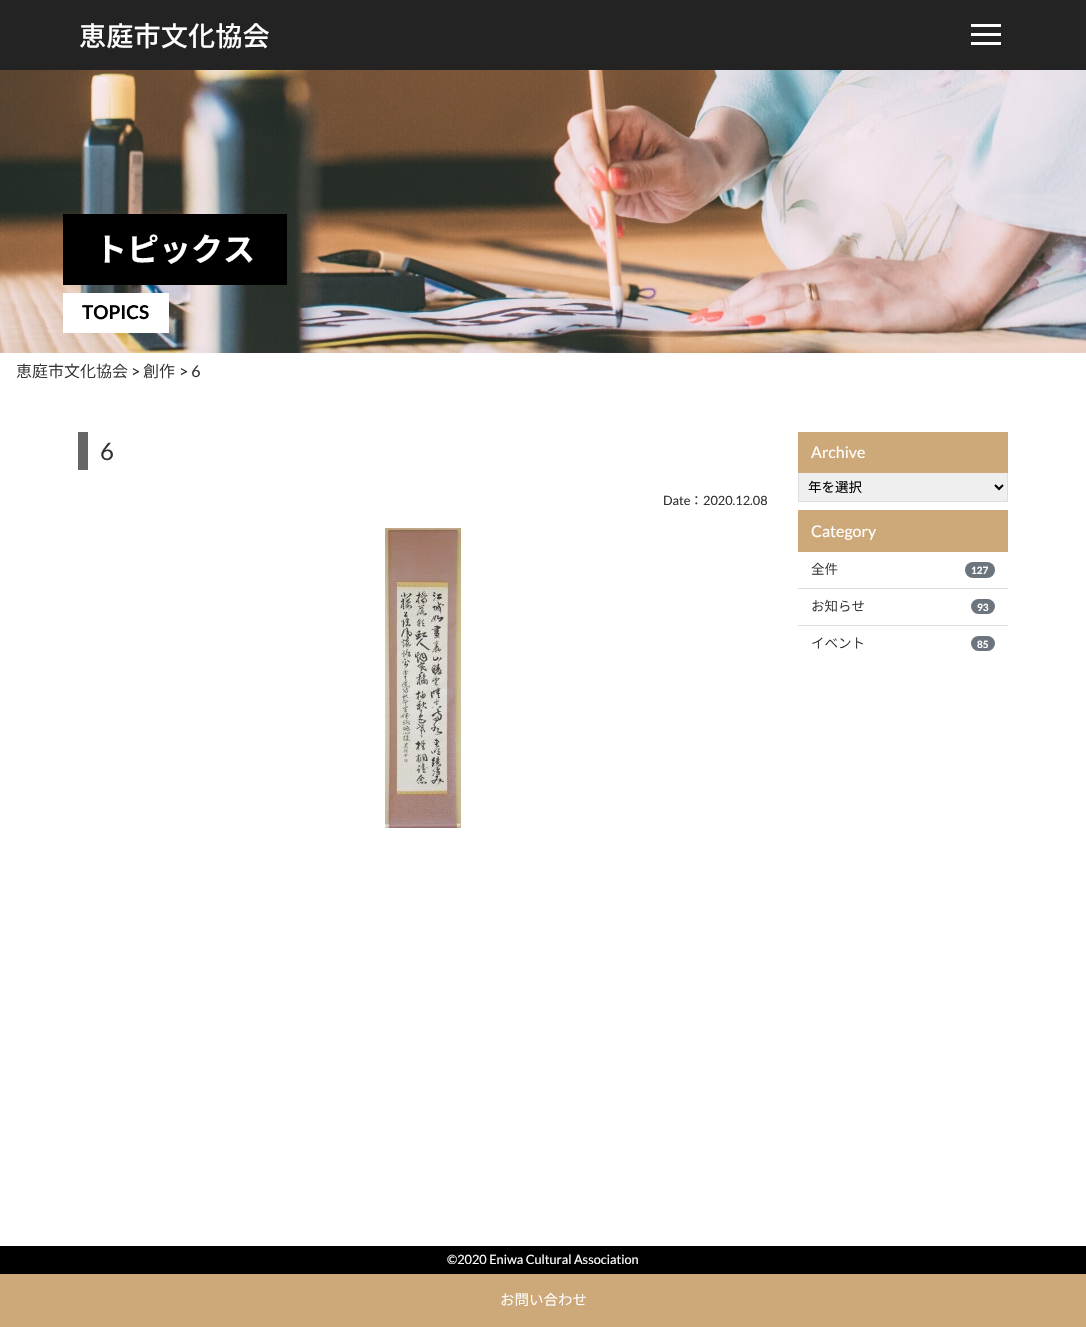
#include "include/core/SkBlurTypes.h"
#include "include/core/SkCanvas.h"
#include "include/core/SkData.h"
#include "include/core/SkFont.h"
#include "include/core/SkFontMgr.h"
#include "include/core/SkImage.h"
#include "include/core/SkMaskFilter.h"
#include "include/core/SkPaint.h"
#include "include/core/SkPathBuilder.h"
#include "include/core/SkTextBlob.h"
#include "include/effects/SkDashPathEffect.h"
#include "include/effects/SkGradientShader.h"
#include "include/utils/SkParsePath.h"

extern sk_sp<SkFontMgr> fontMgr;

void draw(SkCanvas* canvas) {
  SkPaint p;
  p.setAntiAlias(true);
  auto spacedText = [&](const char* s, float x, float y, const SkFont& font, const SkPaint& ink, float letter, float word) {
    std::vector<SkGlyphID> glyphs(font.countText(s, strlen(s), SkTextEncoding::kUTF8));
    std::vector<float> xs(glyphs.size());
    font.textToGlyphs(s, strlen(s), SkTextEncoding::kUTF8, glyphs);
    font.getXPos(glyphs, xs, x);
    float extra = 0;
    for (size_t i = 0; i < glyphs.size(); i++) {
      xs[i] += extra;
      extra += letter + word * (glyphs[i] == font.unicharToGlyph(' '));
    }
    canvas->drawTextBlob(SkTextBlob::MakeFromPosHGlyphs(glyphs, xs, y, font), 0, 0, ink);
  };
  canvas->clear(SK_ColorWHITE);
  p.setColor(SkColorSetRGB(35, 35, 35));
  canvas->drawRect(SkRect::MakeLTRB(0, 0, 1086, 70), p);
  p.setColor(SK_ColorWHITE);
  canvas->drawRect(SkRect::MakeLTRB(971, 24, 1001, 27), p);
  canvas->drawRect(SkRect::MakeLTRB(971, 33, 1001, 36), p);
  canvas->drawRect(SkRect::MakeLTRB(971, 42, 1001, 45), p);
  canvas->drawImageRect(SkImages::DeferredFromEncodedData(SkData::MakeFromFileName("images/1.png")), SkRect::MakeLTRB(0, 70, 1086, 353), SkSamplingOptions());
  p.setColor(SK_ColorBLACK);
  canvas->drawRect(SkRect::MakeLTRB(63, 214, 287, 285), p);
  p.setColor(SK_ColorWHITE);
  canvas->drawRect(SkRect::MakeLTRB(63, 293, 169, 333), p);
  p.setColor(SkColorSetRGB(102, 102, 102));
  canvas->drawRect(SkRect::MakeLTRB(78, 432, 88, 470), p);
  canvas->drawImageRect(SkImages::DeferredFromEncodedData(SkData::MakeFromFileName("images/2.png")), SkRect::MakeLTRB(385, 528, 461, 828), SkSamplingOptions());
  p.setColor(SkColorSetRGB(239, 239, 239));
  canvas->drawRect(SkRect::MakeLTRB(798.5f, 472.5f, 1007.5f, 501.5f), p);
  p.setStyle(SkPaint::kStroke_Style);
  p.setStrokeWidth(1);
  p.setColor(SkColorSetRGB(221, 221, 221));
  canvas->drawRect(SkRect::MakeLTRB(798.5f, 472.5f, 1007.5f, 501.5f), p);
  p.setStyle(SkPaint::kFill_Style);
  p.setColor(SkColorSetRGB(205, 168, 120));
  canvas->drawRect(SkRect::MakeLTRB(798, 432, 1008, 473), p);
  p.setStyle(SkPaint::kStroke_Style);
  p.setStrokeWidth(2);
  p.setColor(SK_ColorBLACK);
  canvas->drawPath(SkPathBuilder().moveTo(995, 485).lineTo(999, 489).lineTo(1003, 485).detach(), p);
  p.setStyle(SkPaint::kFill_Style);
  p.setColor(SkColorSetRGB(205, 168, 120));
  canvas->drawRect(SkRect::MakeLTRB(798, 510, 1008, 552), p);
  p.setColor(SkColorSetRGB(108, 117, 125));
  canvas->drawRoundRect(SkRect::MakeLTRB(965, 562, 995, 578), 8, 8, p);
  p.setColor(SkColorSetRGB(223, 223, 223));
  canvas->drawRect(SkRect::MakeLTRB(798, 588, 1008, 589), p);
  p.setColor(SkColorSetRGB(108, 117, 125));
  canvas->drawRoundRect(SkRect::MakeLTRB(971, 599, 995, 614), 7.5f, 7.5f, p);
  p.setColor(SkColorSetRGB(223, 223, 223));
  canvas->drawRect(SkRect::MakeLTRB(798, 625, 1008, 626), p);
  p.setColor(SkColorSetRGB(108, 117, 125));
  canvas->drawRoundRect(SkRect::MakeLTRB(971, 636, 995, 651), 7.5f, 7.5f, p);
  p.setColor(SK_ColorBLACK);
  canvas->drawRect(SkRect::MakeLTRB(0, 1246, 1086, 1274), p);
  p.setColor(SkColorSetRGB(205, 168, 120));
  canvas->drawRect(SkRect::MakeLTRB(0, 1274, 1086, 1327), p);
  SkFont font1(fontMgr->matchFamilyStyle("Noto Sans JP", SkFontStyle(500, SkFontStyle::kNormal_Width, SkFontStyle::kUpright_Slant)), 27.25f);
  font1.setSubpixel(true);
  p.setColor(SK_ColorWHITE);
  canvas->drawString("恵庭市文化協会", 79, 46, font1, p);
  SkFont font2(fontMgr->matchFamilyStyle("Noto Sans JP", SkFontStyle::Bold()), 32);
  font2.setSubpixel(true);
  canvas->drawString("トピックス", 95, 261, font2, p);
  SkFont font3(fontMgr->matchFamilyStyle("Lato", SkFontStyle::Bold()), 19);
  font3.setSubpixel(true);
  p.setColor(SK_ColorBLACK);
  canvas->drawString("TOPICS", 82, 319, font3, p);
  SkFont font4(fontMgr->matchFamilyStyle("Noto Sans JP", SkFontStyle(300, SkFontStyle::kNormal_Width, SkFontStyle::kUpright_Slant)), 16);
  font4.setSubpixel(true);
  p.setColor(SkColorSetRGB(51, 51, 51));
  canvas->drawString("恵庭市文化協会", 16, 377, font4, p);
  SkFont font5(fontMgr->matchFamilyStyle("Lato", SkFontStyle::Normal()), 16);
  font5.setSubpixel(true);
  canvas->drawString(">", 131, 377, font5, p);
  canvas->drawString("創作", 143, 377, font4, p);
  canvas->drawString("> 6", 179, 377, font5, p);
  SkFont font6(fontMgr->matchFamilyStyle("Lato", SkFontStyle::Normal()), 24);
  font6.setSubpixel(true);
  spacedText("6", 100, 460, font6, p, 2, 0);
  SkFont font7(fontMgr->matchFamilyStyle("Lato", SkFontStyle::Normal()), 12.75f);
  font7.setSubpixel(true);
  canvas->drawString("Date", 663, 505, font7, p);
  SkFont font8(fontMgr->matchFamilyStyle("Noto Sans JP", SkFontStyle::Normal()), 12.75f);
  font8.setSubpixel(true);
  canvas->drawString("：", 690, 505, font8, p);
  canvas->drawString("2020.12.08", 703, 505, font7, p);
  p.setColor(SK_ColorWHITE);
  canvas->drawString("Archive", 811, 458, font5, p);
  SkFont font9(fontMgr->matchFamilyStyle("Noto Sans JP", SkFontStyle::Normal()), 13.5f);
  font9.setSubpixel(true);
  p.setColor(SK_ColorBLACK);
  canvas->drawString("年を選択", 808, 492, font9, p);
  p.setColor(SK_ColorWHITE);
  canvas->drawString("Category", 811, 537, font5, p);
  SkFont font10(fontMgr->matchFamilyStyle("Noto Sans JP", SkFontStyle(300, SkFontStyle::kNormal_Width, SkFontStyle::kUpright_Slant)), 13.5f);
  font10.setSubpixel(true);
  p.setColor(SkColorSetRGB(51, 51, 51));
  canvas->drawString("全件", 811, 574, font10, p);
  SkFont font11(fontMgr->matchFamilyStyle("Lato", SkFontStyle::Bold()), 10);
  font11.setSubpixel(true);
  p.setColor(SK_ColorWHITE);
  canvas->drawString("127", 971, 574, font11, p);
  p.setColor(SkColorSetRGB(51, 51, 51));
  canvas->drawString("お知らせ", 811, 611, font10, p);
  p.setColor(SK_ColorWHITE);
  canvas->drawString("93", 977, 611, font11, p);
  p.setColor(SkColorSetRGB(51, 51, 51));
  canvas->drawString("イベント", 811, 648, font10, p);
  p.setColor(SK_ColorWHITE);
  canvas->drawString("85", 977, 648, font11, p);
  canvas->drawString("©2020 Eniwa Cultural Association", 447, 1264, font7, p);
  SkFont font12(fontMgr->matchFamilyStyle("Noto Sans JP", SkFontStyle(300, SkFontStyle::kNormal_Width, SkFontStyle::kUpright_Slant)), 14.5f);
  font12.setSubpixel(true);
  canvas->drawString("お問い合わせ", 500, 1305, font12, p);
}
